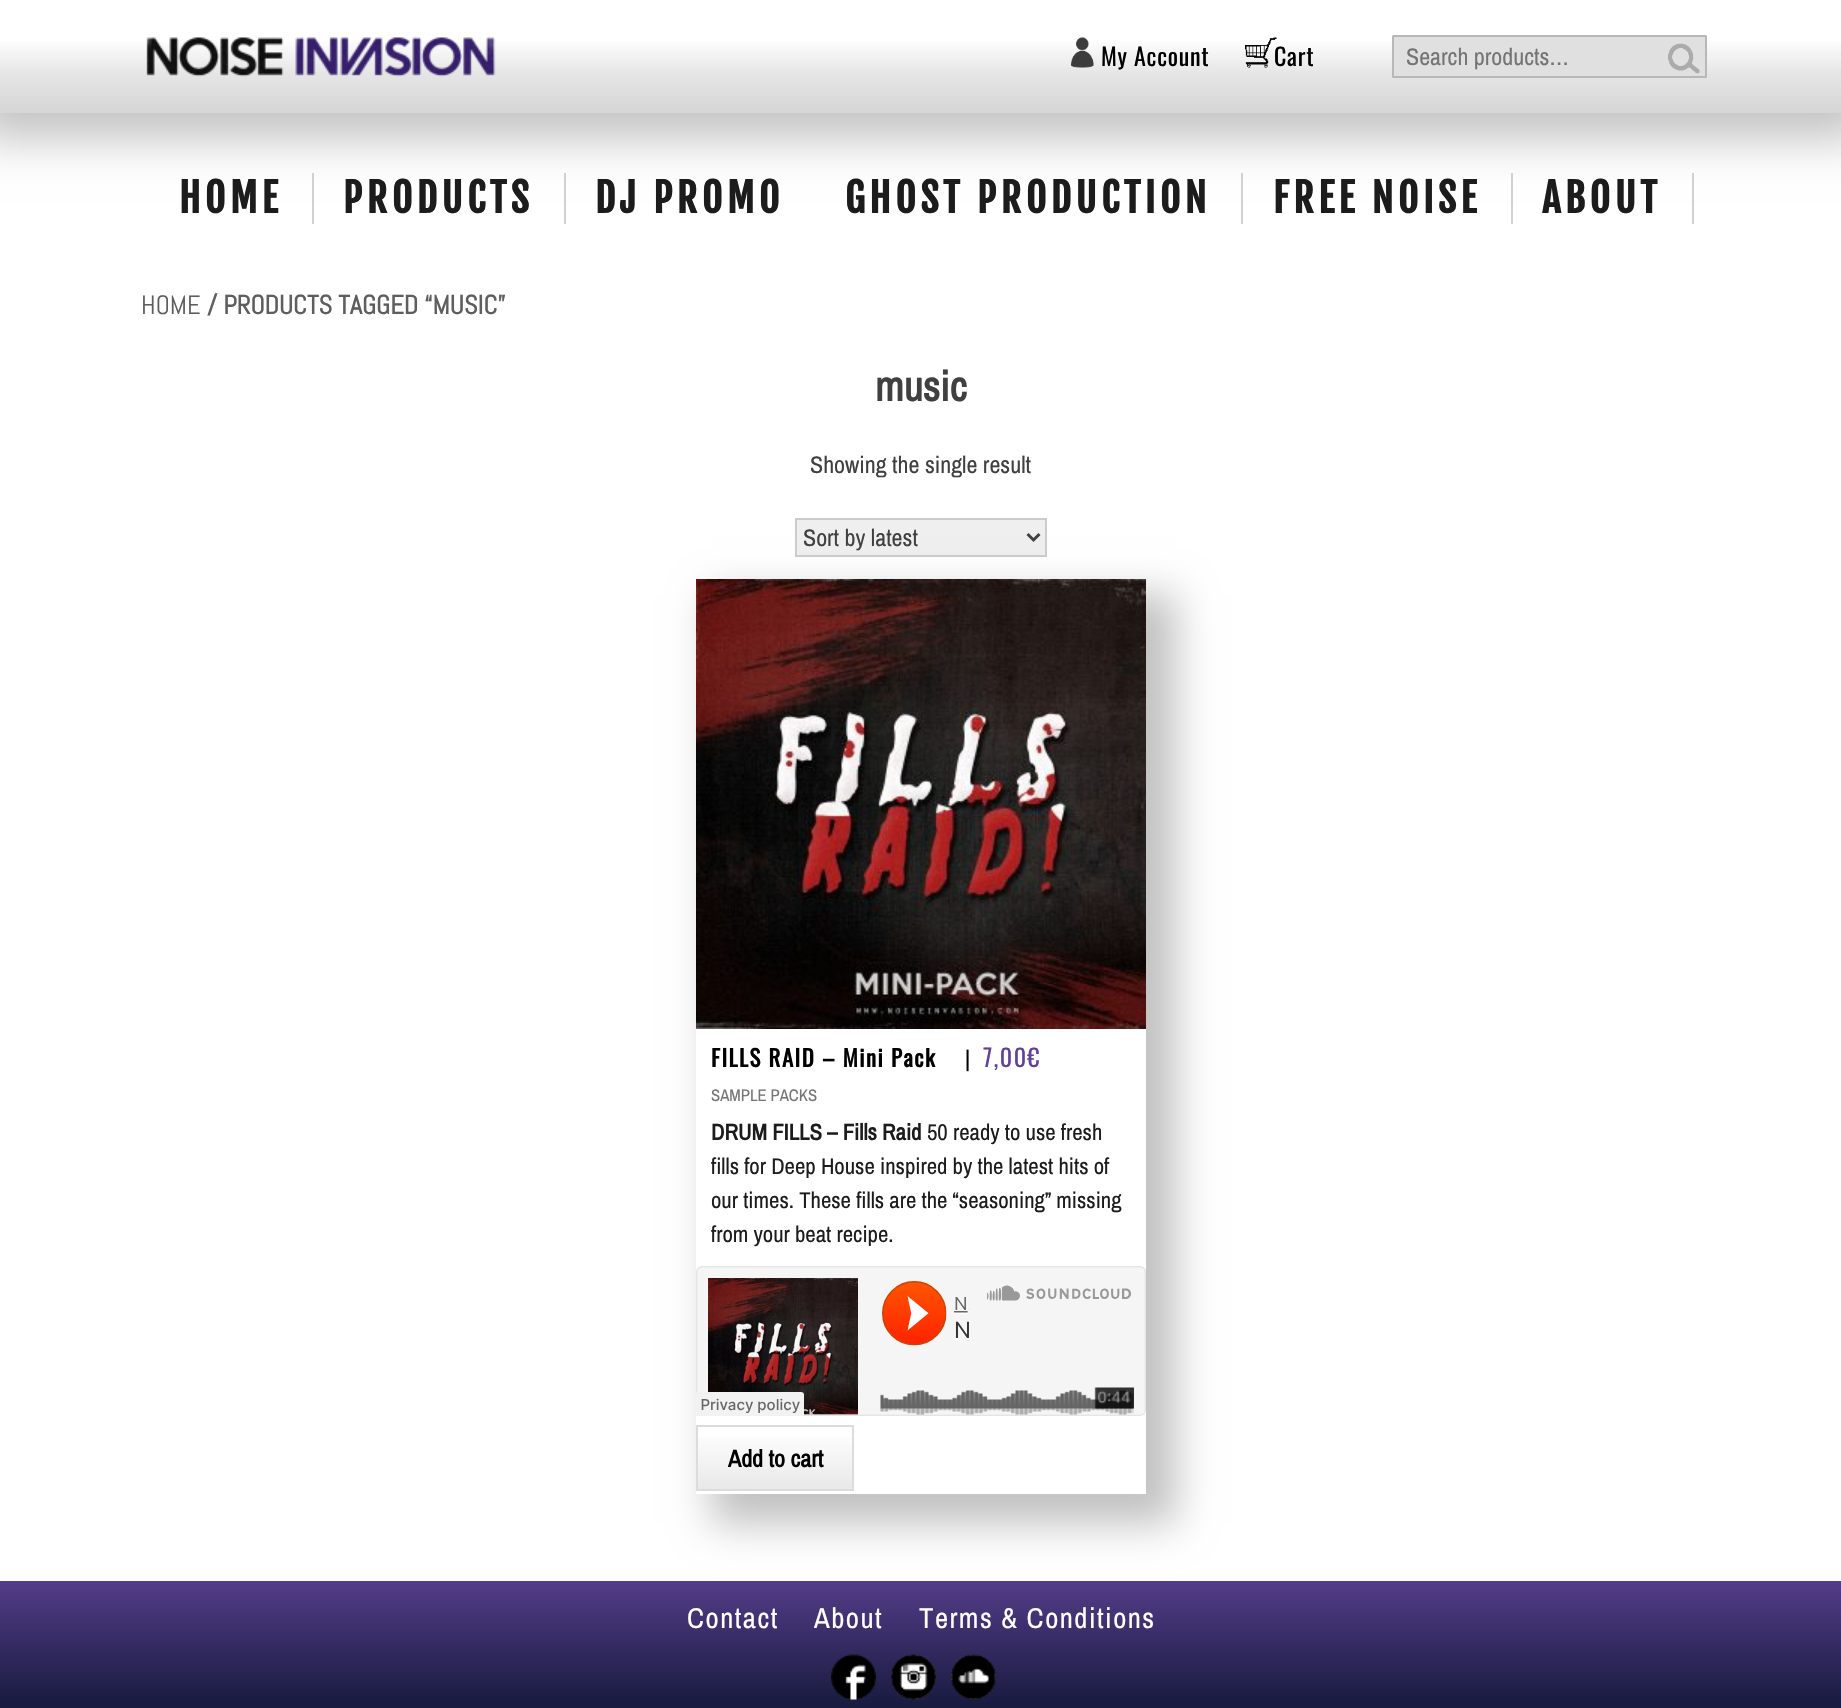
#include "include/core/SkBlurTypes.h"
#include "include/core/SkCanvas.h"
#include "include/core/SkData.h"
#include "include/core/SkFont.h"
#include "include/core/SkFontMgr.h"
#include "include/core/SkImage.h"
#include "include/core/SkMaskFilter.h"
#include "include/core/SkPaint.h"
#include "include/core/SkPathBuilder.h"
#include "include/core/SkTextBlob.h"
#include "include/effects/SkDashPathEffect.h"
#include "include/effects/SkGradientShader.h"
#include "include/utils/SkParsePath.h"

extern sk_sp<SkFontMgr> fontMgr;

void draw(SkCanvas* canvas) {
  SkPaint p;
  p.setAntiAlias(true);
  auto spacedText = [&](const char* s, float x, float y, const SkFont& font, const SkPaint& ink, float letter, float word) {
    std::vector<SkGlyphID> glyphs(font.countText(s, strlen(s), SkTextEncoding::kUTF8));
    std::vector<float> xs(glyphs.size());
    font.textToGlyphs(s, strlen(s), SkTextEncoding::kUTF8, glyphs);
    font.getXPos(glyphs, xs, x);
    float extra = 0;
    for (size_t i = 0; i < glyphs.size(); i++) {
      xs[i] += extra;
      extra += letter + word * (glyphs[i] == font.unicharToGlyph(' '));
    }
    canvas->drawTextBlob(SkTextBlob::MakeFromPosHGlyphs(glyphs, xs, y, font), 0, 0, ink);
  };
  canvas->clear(SK_ColorWHITE);
  p.setColor(SkColorSetRGB(193, 193, 193));
  p.setMaskFilter(SkMaskFilter::MakeBlur(kNormal_SkBlurStyle, 22.5f));
  canvas->drawRect(SkRect::MakeLTRB(-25, -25, 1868, 138), p);
  p.setMaskFilter(nullptr);
  {
    const SkColor colors[] = {SK_ColorWHITE, SkColorSetRGB(229, 229, 229), SkColorSetRGB(214, 214, 214)};
    const float stops[] = {0.34f, 0.66f, 1};
    const SkPoint ends[] = {{921, 0}, {921, 113}};
    p.setShader(SkGradientShader::MakeLinear(ends, colors, stops, 3, SkTileMode::kClamp));
    p.setAlpha(255);
  }
  canvas->drawRect(SkRect::MakeLTRB(0, 0, 1841, 113), p);
  canvas->drawImageRect(SkImages::DeferredFromEncodedData(SkData::MakeFromFileName("images/1.png")), SkRect::MakeLTRB(146, 37, 496, 77), SkSamplingOptions());
  canvas->drawImageRect(SkImages::DeferredFromEncodedData(SkData::MakeFromFileName("images/2.png")), SkRect::MakeLTRB(1071, 37, 1094, 68), SkSamplingOptions());
  canvas->drawImageRect(SkImages::DeferredFromEncodedData(SkData::MakeFromFileName("images/3.png")), SkRect::MakeLTRB(1245, 37, 1277, 68), SkSamplingOptions());
  p.setShader(nullptr);
  p.setColor(SkColorSetRGB(224, 224, 224));
  canvas->drawRoundRect(SkRect::MakeLTRB(1393, 36, 1706, 77), 0.5f, 0.5f, p);
  p.setStyle(SkPaint::kStroke_Style);
  p.setStrokeWidth(2);
  p.setColor(SkColorSetRGB(184, 184, 184));
  canvas->drawRoundRect(SkRect::MakeLTRB(1393, 36, 1706, 77), 0.5f, 0.5f, p);
  canvas->drawImageRect(SkImages::DeferredFromEncodedData(SkData::MakeFromFileName("images/4.png")), SkRect::MakeLTRB(1668, 43, 1700, 74), SkSamplingOptions());
  p.setStyle(SkPaint::kFill_Style);
  p.setColor(SkColorSetRGB(209, 209, 209));
  canvas->drawRect(SkRect::MakeLTRB(312, 173, 314, 224), p);
  canvas->drawRect(SkRect::MakeLTRB(564, 173, 566, 224), p);
  canvas->drawRect(SkRect::MakeLTRB(1241, 173, 1243, 224), p);
  canvas->drawRect(SkRect::MakeLTRB(1511, 173, 1513, 224), p);
  canvas->drawRect(SkRect::MakeLTRB(1692, 173, 1694, 224), p);
  p.setColor(SkColorSetRGB(239, 239, 239));
  canvas->drawRect(SkRect::MakeLTRB(796, 519, 1046, 556), p);
  p.setStyle(SkPaint::kStroke_Style);
  p.setColor(SkColorSetRGB(204, 204, 204));
  canvas->drawRect(SkRect::MakeLTRB(796, 519, 1046, 556), p);
  p.setStrokeWidth(3);
  p.setColor(SkColorSetRGB(64, 64, 64));
  canvas->drawPath(SkPathBuilder().moveTo(1027.5f, 534).lineTo(1033.5f, 540).lineTo(1039.5f, 534).detach(), p);
  canvas->save();
  canvas->clipPath(SkPathBuilder(SkPathFillType::kEvenOdd).moveTo(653, 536).lineTo(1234, 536).lineTo(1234, 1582).lineTo(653, 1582).close().moveTo(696, 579).lineTo(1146, 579).lineTo(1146, 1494).lineTo(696, 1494).close().detach(), true);
  p.setStyle(SkPaint::kFill_Style);
  p.setColor(SkColorSetRGB(193, 193, 193));
  p.setMaskFilter(SkMaskFilter::MakeBlur(kNormal_SkBlurStyle, 19));
  canvas->drawRect(SkRect::MakeLTRB(711, 594, 1176, 1524), p);
  p.setMaskFilter(nullptr);
  canvas->restore();
  canvas->drawImageRect(SkImages::DeferredFromEncodedData(SkData::MakeFromFileName("images/5.png")), SkRect::MakeLTRB(696, 579, 1146, 1029), SkSamplingOptions());
  canvas->drawImageRect(SkImages::DeferredFromEncodedData(SkData::MakeFromFileName("images/6.png")), SkRect::MakeLTRB(696, 1266, 1146, 1416), SkSamplingOptions());
  {
    const SkColor colors[] = {SK_ColorWHITE, SkColorSetRGB(232, 232, 232)};
    const float stops[] = {0.05f, 1};
    const SkPoint ends[] = {{775, 1427}, {775, 1490}};
    p.setShader(SkGradientShader::MakeLinear(ends, colors, stops, 2, SkTileMode::kClamp));
    p.setAlpha(255);
  }
  canvas->drawRect(SkRect::MakeLTRB(698, 1437, 852, 1489), p);
  p.setStyle(SkPaint::kStroke_Style);
  p.setStrokeWidth(2);
  p.setShader(nullptr);
  p.setColor(SkColorSetRGB(220, 220, 220));
  canvas->drawRect(SkRect::MakeLTRB(697, 1426, 853, 1490), p);
  p.setStyle(SkPaint::kFill_Style);
  {
    const SkColor colors[] = {SkColorSetRGB(83, 60, 136), SkColorSetRGB(23, 26, 61)};
    const float stops[] = {0, 1};
    const SkPoint ends[] = {{921, 1581}, {921, 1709}};
    p.setShader(SkGradientShader::MakeLinear(ends, colors, stops, 2, SkTileMode::kClamp));
    p.setAlpha(255);
  }
  canvas->drawRect(SkRect::MakeLTRB(0, 1581, 1841, 1708), p);
  canvas->drawImageRect(SkImages::DeferredFromEncodedData(SkData::MakeFromFileName("images/7.png")), SkRect::MakeLTRB(831, 1654, 876, 1700), SkSamplingOptions());
  canvas->drawImageRect(SkImages::DeferredFromEncodedData(SkData::MakeFromFileName("images/8.png")), SkRect::MakeLTRB(891, 1654, 936, 1700), SkSamplingOptions());
  canvas->drawImageRect(SkImages::DeferredFromEncodedData(SkData::MakeFromFileName("images/9.png")), SkRect::MakeLTRB(951, 1654, 996, 1700), SkSamplingOptions());
  SkFont font1(fontMgr->matchFamilyStyle("Oswald", SkFontStyle::Normal()), 24);
  font1.setSubpixel(true);
  p.setShader(nullptr);
  p.setColor(SK_ColorBLACK);
  spacedText("My Account", 1101, 66, font1, p, 0.75f, 0);
  spacedText("Cart", 1274, 66, font1, p, 0.75f, 0);
  SkFont font2(fontMgr->matchFamilyStyle("Archivo Narrow", SkFontStyle::Normal()), 24);
  font2.setSubpixel(true);
  p.setColor(SkColorSetRGB(117, 117, 117));
  canvas->drawString("Search products…", 1406, 65, font2, p);
  SkFont font3(fontMgr->matchFamilyStyle("Fjalla One", SkFontStyle::Bold()), 39.5f);
  font3.setSubpixel(true);
  p.setColor(SkColorSetRGB(28, 28, 28));
  spacedText("HOME", 179, 213, font3, p, 4.5f, 0);
  spacedText("PRODUCTS", 343, 213, font3, p, 4.5f, 0);
  spacedText("DJ PROMO", 595, 213, font3, p, 4.5f, 0);
  spacedText("GHOST PRODUCTION", 845, 213, font3, p, 4.5f, 0);
  spacedText("FREE NOISE", 1273, 213, font3, p, 4.5f, 0);
  spacedText("ABOUT", 1542, 213, font3, p, 4.5f, 0);
  SkFont font4(fontMgr->matchFamilyStyle("Abel", SkFontStyle::Normal()), 26.4f);
  font4.setSubpixel(true);
  p.setColor(SkColorSetRGB(94, 94, 94));
  canvas->drawString("HOME", 141, 314, font4, p);
  SkFont font5(fontMgr->matchFamilyStyle("Abel", SkFontStyle::Bold()), 26.4f);
  font5.setSubpixel(true);
  canvas->drawString("/ PRODUCTS TAGGED “MUSIC”", 207, 314, font5, p);
  SkFont font6(fontMgr->matchFamilyStyle("Archivo Narrow", SkFontStyle::Bold()), 42);
  font6.setSubpixel(true);
  p.setColor(SkColorSetRGB(64, 64, 64));
  canvas->drawString("music", 875, 401, font6, p);
  canvas->drawString("Showing the single result", 810, 473, font2, p);
  canvas->drawString("Sort by latest", 803, 546, font2, p);
  SkFont font7(fontMgr->matchFamilyStyle("Oswald", SkFontStyle::Bold()), 22.75f);
  font7.setSubpixel(true);
  p.setColor(SK_ColorBLACK);
  spacedText("FILLS RAID – Mini Pack", 711, 1067, font7, p, 1.5f, 0);
  canvas->drawString("|", 965, 1067, font2, p);
  p.setColor(SkColorSetRGB(98, 66, 152));
  spacedText("7,00€", 983, 1067, font1, p, 1.5f, 0);
  SkFont font8(fontMgr->matchFamilyStyle("Archivo Narrow", SkFontStyle::Normal()), 16.75f);
  font8.setSubpixel(true);
  p.setColor(SkColorSetRGB(117, 117, 117));
  canvas->drawString("SAMPLE PACKS", 711, 1101, font8, p);
  SkFont font9(fontMgr->matchFamilyStyle("Archivo Narrow", SkFontStyle::Bold()), 22.75f);
  font9.setSubpixel(true);
  p.setColor(SkColorSetRGB(28, 28, 28));
  canvas->drawString("DRUM FILLS – Fills Raid", 711, 1140, font9, p);
  SkFont font10(fontMgr->matchFamilyStyle("Archivo Narrow", SkFontStyle::Normal()), 22.75f);
  font10.setSubpixel(true);
  canvas->drawString("50 ready to use fresh", 927, 1140, font10, p);
  canvas->drawString("fills for Deep House inspired by the latest hits of", 711, 1174, font10, p);
  canvas->drawString("our times. These fills are the “seasoning” missing", 711, 1208, font10, p);
  canvas->drawString("from your beat recipe.", 711, 1242, font10, p);
  SkFont font11(fontMgr->matchFamilyStyle("Archivo Narrow", SkFontStyle::Bold()), 24);
  font11.setSubpixel(true);
  p.setColor(SK_ColorBLACK);
  canvas->drawString("Add to cart", 728, 1467, font11, p);
  SkFont font12(fontMgr->matchFamilyStyle("Archivo Narrow", SkFontStyle::Normal()), 28.75f);
  font12.setSubpixel(true);
  p.setColor(SK_ColorWHITE);
  spacedText("Contact", 687, 1628, font12, p, 1.5f, 0);
  spacedText("About", 814, 1628, font12, p, 1.5f, 0);
  spacedText("Terms & Conditions", 919, 1628, font12, p, 1.5f, 0);
}
